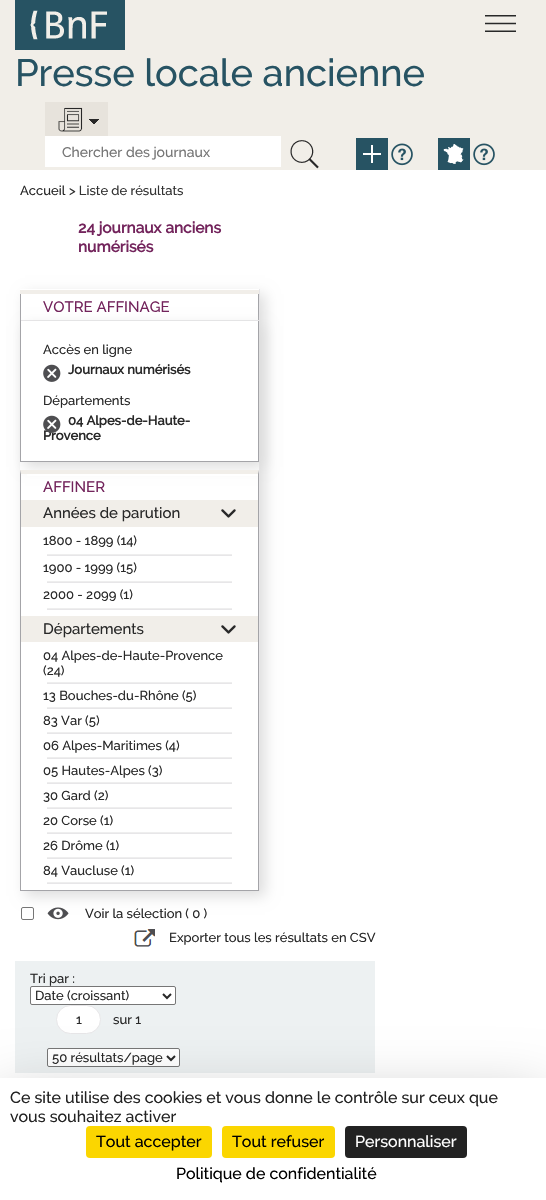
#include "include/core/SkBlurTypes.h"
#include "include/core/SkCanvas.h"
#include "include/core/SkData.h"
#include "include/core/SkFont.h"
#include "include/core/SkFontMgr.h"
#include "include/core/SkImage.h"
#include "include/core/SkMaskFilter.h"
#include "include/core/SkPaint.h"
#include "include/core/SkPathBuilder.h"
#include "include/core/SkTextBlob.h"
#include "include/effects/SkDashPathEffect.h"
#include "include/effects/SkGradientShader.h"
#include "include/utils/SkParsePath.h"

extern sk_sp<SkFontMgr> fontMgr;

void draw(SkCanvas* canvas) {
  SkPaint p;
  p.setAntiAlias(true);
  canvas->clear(SK_ColorWHITE);
  p.setColor(SkColorSetRGB(241, 238, 232));
  canvas->drawRect(SkRect::MakeLTRB(0, 0, 546, 170), p);
  canvas->drawImageRect(SkImages::DeferredFromEncodedData(SkData::MakeFromFileName("images/1.png")), SkRect::MakeLTRB(15, 0, 125, 50), SkSamplingOptions());
  canvas->drawImageRect(SkImages::DeferredFromEncodedData(SkData::MakeFromFileName("images/2.png")), SkRect::MakeLTRB(485, 15, 516, 32), SkSamplingOptions());
  canvas->drawImageRect(SkImages::DeferredFromEncodedData(SkData::MakeFromFileName("images/3.png")), SkRect::MakeLTRB(45, 102, 108, 136), SkSamplingOptions());
  p.setColor(SK_ColorWHITE);
  canvas->drawRect(SkRect::MakeLTRB(45, 136, 281, 167), p);
  canvas->drawImageRect(SkImages::DeferredFromEncodedData(SkData::MakeFromFileName("images/4.png")), SkRect::MakeLTRB(290, 140, 319, 169), SkSamplingOptions());
  canvas->drawImageRect(SkImages::DeferredFromEncodedData(SkData::MakeFromFileName("images/5.png")), SkRect::MakeLTRB(356, 138, 388, 170), SkSamplingOptions());
  canvas->drawImageRect(SkImages::DeferredFromEncodedData(SkData::MakeFromFileName("images/6.png")), SkRect::MakeLTRB(391, 143, 413, 166), SkSamplingOptions());
  canvas->drawImageRect(SkImages::DeferredFromEncodedData(SkData::MakeFromFileName("images/7.png")), SkRect::MakeLTRB(438, 138, 470, 170), SkSamplingOptions());
  canvas->drawImageRect(SkImages::DeferredFromEncodedData(SkData::MakeFromFileName("images/6.png")), SkRect::MakeLTRB(473, 143, 495, 166), SkSamplingOptions());
  canvas->save();
  canvas->clipPath(SkPathBuilder(SkPathFillType::kEvenOdd).moveTo(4, 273).lineTo(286, 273).lineTo(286, 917).lineTo(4, 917).close().moveTo(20, 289).lineTo(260, 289).lineTo(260, 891).lineTo(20, 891).close().detach(), true);
  p.setColor(SkColorSetRGB(221, 221, 221));
  p.setMaskFilter(SkMaskFilter::MakeBlur(kNormal_SkBlurStyle, 6.5f));
  canvas->drawRect(SkRect::MakeLTRB(25, 294, 265, 896), p);
  p.setMaskFilter(nullptr);
  canvas->restore();
  p.setColor(SkColorSetRGB(231, 230, 232));
  canvas->drawRect(SkRect::MakeLTRB(259, 289, 260, 891), p);
  p.setColor(SkColorSetRGB(241, 238, 233));
  canvas->drawRect(SkRect::MakeLTRB(20, 290, 259, 294), p);
  p.setColor(SkColorSetRGB(164, 164, 168));
  canvas->drawRect(SkRect::MakeLTRB(258, 294, 259, 321), p);
  p.setColor(SkColorSetRGB(231, 230, 232));
  canvas->drawRect(SkRect::MakeLTRB(20, 320, 259, 321), p);
  p.setColor(SkColorSetRGB(164, 164, 168));
  canvas->drawRect(SkRect::MakeLTRB(20, 294, 21, 321), p);
  canvas->save();
  canvas->clipPath(SkPathBuilder(SkPathFillType::kEvenOdd).moveTo(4, 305).lineTo(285, 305).lineTo(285, 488).lineTo(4, 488).close().moveTo(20, 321).lineTo(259, 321).lineTo(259, 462).lineTo(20, 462).close().detach(), true);
  p.setColor(SkColorSetRGB(221, 221, 221));
  p.setMaskFilter(SkMaskFilter::MakeBlur(kNormal_SkBlurStyle, 6.5f));
  canvas->drawRect(SkRect::MakeLTRB(25, 326, 264, 467), p);
  p.setMaskFilter(nullptr);
  canvas->restore();
  p.setColor(SkColorSetRGB(164, 164, 168));
  canvas->drawRect(SkRect::MakeLTRB(258, 321, 259, 462), p);
  canvas->drawRect(SkRect::MakeLTRB(20, 461, 259, 462), p);
  canvas->drawRect(SkRect::MakeLTRB(20, 321, 21, 462), p);
  canvas->drawImageRect(SkImages::DeferredFromEncodedData(SkData::MakeFromFileName("images/8.png")), SkRect::MakeLTRB(43, 364, 61, 382), SkSamplingOptions());
  p.setColor(SK_ColorWHITE);
  canvas->drawRect(SkRect::MakeLTRB(27, 474, 258, 476), p);
  p.setColor(SkColorSetRGB(241, 238, 233));
  canvas->drawPath(SkPathBuilder().moveTo(20, 470).lineTo(259, 470).lineTo(258, 474).lineTo(21, 474).close().detach(), p);
  p.setColor(SkColorSetRGB(164, 164, 168));
  canvas->drawPath(SkPathBuilder().moveTo(259, 470).lineTo(259, 891).lineTo(258, 890).lineTo(258, 474).close().detach(), p);
  canvas->drawRect(SkRect::MakeLTRB(20, 890, 259, 891), p);
  canvas->drawPath(SkPathBuilder().moveTo(20, 891).lineTo(20, 470).lineTo(21, 474).lineTo(21, 890).close().detach(), p);
  p.setColor(SkColorSetRGB(241, 238, 233));
  canvas->drawRect(SkRect::MakeLTRB(21, 500, 258, 527), p);
  canvas->drawImageRect(SkImages::DeferredFromEncodedData(SkData::MakeFromFileName("images/10.png")), SkRect::MakeLTRB(221, 509, 236, 518), SkSamplingOptions());
  p.setColor(SkColorSetRGB(231, 230, 232));
  canvas->drawRect(SkRect::MakeLTRB(47, 555, 232, 556), p);
  p.setColor(SkColorSetRGB(238, 238, 238));
  canvas->drawRect(SkRect::MakeLTRB(47, 554, 232, 555), p);
  p.setColor(SkColorSetRGB(231, 230, 232));
  canvas->drawRect(SkRect::MakeLTRB(47, 582, 232, 583), p);
  p.setColor(SkColorSetRGB(238, 238, 238));
  canvas->drawRect(SkRect::MakeLTRB(47, 581, 232, 582), p);
  p.setColor(SkColorSetRGB(231, 230, 232));
  canvas->drawRect(SkRect::MakeLTRB(47, 609, 232, 610), p);
  p.setColor(SkColorSetRGB(238, 238, 238));
  canvas->drawRect(SkRect::MakeLTRB(47, 608, 232, 609), p);
  p.setColor(SkColorSetRGB(241, 238, 233));
  canvas->drawRect(SkRect::MakeLTRB(21, 616, 258, 642), p);
  canvas->drawImageRect(SkImages::DeferredFromEncodedData(SkData::MakeFromFileName("images/10.png")), SkRect::MakeLTRB(221, 625, 236, 634), SkSamplingOptions());
  p.setColor(SkColorSetRGB(231, 230, 232));
  canvas->drawRect(SkRect::MakeLTRB(47, 683, 232, 684), p);
  p.setColor(SkColorSetRGB(238, 238, 238));
  canvas->drawRect(SkRect::MakeLTRB(47, 682, 232, 683), p);
  p.setColor(SkColorSetRGB(231, 230, 232));
  canvas->drawRect(SkRect::MakeLTRB(47, 708, 232, 709), p);
  p.setColor(SkColorSetRGB(238, 238, 238));
  canvas->drawRect(SkRect::MakeLTRB(47, 707, 232, 708), p);
  p.setColor(SkColorSetRGB(231, 230, 232));
  canvas->drawRect(SkRect::MakeLTRB(47, 733, 232, 734), p);
  p.setColor(SkColorSetRGB(238, 238, 238));
  canvas->drawRect(SkRect::MakeLTRB(47, 732, 232, 733), p);
  p.setColor(SkColorSetRGB(231, 230, 232));
  canvas->drawRect(SkRect::MakeLTRB(47, 758, 232, 759), p);
  p.setColor(SkColorSetRGB(238, 238, 238));
  canvas->drawRect(SkRect::MakeLTRB(47, 757, 232, 758), p);
  p.setColor(SkColorSetRGB(231, 230, 232));
  canvas->drawRect(SkRect::MakeLTRB(47, 783, 232, 784), p);
  p.setColor(SkColorSetRGB(238, 238, 238));
  canvas->drawRect(SkRect::MakeLTRB(47, 782, 232, 783), p);
  p.setColor(SkColorSetRGB(231, 230, 232));
  canvas->drawRect(SkRect::MakeLTRB(47, 808, 232, 809), p);
  p.setColor(SkColorSetRGB(238, 238, 238));
  canvas->drawRect(SkRect::MakeLTRB(47, 807, 232, 808), p);
  p.setColor(SkColorSetRGB(231, 230, 232));
  canvas->drawRect(SkRect::MakeLTRB(47, 833, 232, 834), p);
  p.setColor(SkColorSetRGB(238, 238, 238));
  canvas->drawRect(SkRect::MakeLTRB(47, 832, 232, 833), p);
  p.setColor(SkColorSetRGB(231, 230, 232));
  canvas->drawRect(SkRect::MakeLTRB(47, 858, 232, 859), p);
  p.setColor(SkColorSetRGB(238, 238, 238));
  canvas->drawRect(SkRect::MakeLTRB(47, 857, 232, 858), p);
  p.setColor(SkColorSetRGB(231, 230, 232));
  canvas->drawRect(SkRect::MakeLTRB(47, 883, 232, 884), p);
  p.setColor(SkColorSetRGB(238, 238, 238));
  canvas->drawRect(SkRect::MakeLTRB(47, 882, 232, 883), p);
  p.setStyle(SkPaint::kStroke_Style);
  p.setStrokeWidth(1);
  p.setColor(SkColorSetRGB(118, 118, 118));
  canvas->drawRoundRect(SkRect::MakeLTRB(21.5f, 907.5f, 33.5f, 919.5f), 1.5f, 1.5f, p);
  canvas->drawImageRect(SkImages::DeferredFromEncodedData(SkData::MakeFromFileName("images/11.png")), SkRect::MakeLTRB(47, 907, 69, 920), SkSamplingOptions());
  canvas->drawImageRect(SkImages::DeferredFromEncodedData(SkData::MakeFromFileName("images/12.png")), SkRect::MakeLTRB(134, 929, 155, 947), SkSamplingOptions());
  p.setStyle(SkPaint::kFill_Style);
  p.setColor(SkColorSetRGB(237, 241, 242));
  canvas->drawRect(SkRect::MakeLTRB(15, 961, 375, 1073), p);
  p.setColor(SK_ColorWHITE);
  canvas->drawRoundRect(SkRect::MakeLTRB(30.5f, 986.5f, 175.5f, 1004.5f), 1.5f, 1.5f, p);
  p.setStyle(SkPaint::kStroke_Style);
  p.setColor(SkColorSetRGB(118, 118, 118));
  canvas->drawRoundRect(SkRect::MakeLTRB(30.5f, 986.5f, 175.5f, 1004.5f), 1.5f, 1.5f, p);
  p.setStrokeWidth(2);
  p.setColor(SkColorSetRGB(40, 40, 40));
  canvas->drawPath(SkPathBuilder().moveTo(163, 994).lineTo(167, 998).lineTo(171, 994).detach(), p);
  p.setStyle(SkPaint::kFill_Style);
  p.setColor(SK_ColorWHITE);
  canvas->drawRoundRect(SkRect::MakeLTRB(56.5f, 1005.5f, 100.5f, 1033.5f), 14, 14, p);
  p.setStyle(SkPaint::kStroke_Style);
  p.setStrokeWidth(1);
  p.setColor(SkColorSetRGB(231, 230, 232));
  canvas->drawRoundRect(SkRect::MakeLTRB(56.5f, 1005.5f, 100.5f, 1033.5f), 14, 14, p);
  p.setStyle(SkPaint::kFill_Style);
  p.setColor(SK_ColorWHITE);
  canvas->drawRoundRect(SkRect::MakeLTRB(47.5f, 1048.5f, 179.5f, 1066.5f), 1.5f, 1.5f, p);
  p.setStyle(SkPaint::kStroke_Style);
  p.setColor(SkColorSetRGB(118, 118, 118));
  canvas->drawRoundRect(SkRect::MakeLTRB(47.5f, 1048.5f, 179.5f, 1066.5f), 1.5f, 1.5f, p);
  p.setStrokeWidth(2);
  p.setColor(SkColorSetRGB(40, 40, 40));
  canvas->drawPath(SkPathBuilder().moveTo(167, 1056).lineTo(171, 1060).lineTo(175, 1056).detach(), p);
  p.setStyle(SkPaint::kFill_Style);
  p.setColor(SkColorSetARGB(64, 0, 0, 0));
  p.setMaskFilter(SkMaskFilter::MakeBlur(kNormal_SkBlurStyle, 30));
  canvas->drawRect(SkRect::MakeLTRB(0, 1098, 546, 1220), p);
  p.setMaskFilter(nullptr);
  p.setColor(SK_ColorWHITE);
  canvas->drawRect(SkRect::MakeLTRB(0, 1078, 546, 1200), p);
  p.setColor(SkColorSetRGB(251, 214, 0));
  canvas->drawRoundRect(SkRect::MakeLTRB(86, 1126, 212, 1158), 4, 4, p);
  canvas->drawRoundRect(SkRect::MakeLTRB(222, 1126, 335, 1158), 4, 4, p);
  p.setColor(SkColorSetRGB(34, 34, 34));
  canvas->drawRoundRect(SkRect::MakeLTRB(345, 1126, 467, 1158), 4, 4, p);
  SkFont font1(fontMgr->matchFamilyStyle("Raleway", SkFontStyle(500, SkFontStyle::kNormal_Width, SkFontStyle::kUpright_Slant)), 38);
  font1.setSubpixel(true);
  p.setColor(SkColorSetRGB(39, 83, 99));
  canvas->drawString("Presse locale ancienne", 15, 86, font1, p);
  SkFont font2(fontMgr->matchFamilyStyle("Raleway", SkFontStyle(500, SkFontStyle::kNormal_Width, SkFontStyle::kUpright_Slant)), 14);
  font2.setSubpixel(true);
  p.setColor(SkColorSetRGB(117, 117, 117));
  canvas->drawString("Chercher des journaux", 62, 157, font2, p);
  SkFont font3(fontMgr->matchFamilyStyle("Raleway", SkFontStyle(500, SkFontStyle::kNormal_Width, SkFontStyle::kUpright_Slant)), 13);
  font3.setSubpixel(true);
  p.setColor(SkColorSetRGB(40, 40, 40));
  canvas->drawString("Accueil", 20, 195, font3, p);
  p.setColor(SkColorSetRGB(51, 51, 51));
  canvas->drawString("> Liste de résultats", 69, 195, font3, p);
  SkFont font4(fontMgr->matchFamilyStyle("Raleway", SkFontStyle::Bold()), 15.5f);
  font4.setSubpixel(true);
  p.setColor(SkColorSetRGB(115, 36, 92));
  canvas->drawString("24 journaux anciens", 78, 233, font4, p);
  canvas->drawString("numérisés", 78, 252, font4, p);
  SkFont font5(fontMgr->matchFamilyStyle("Raleway", SkFontStyle(500, SkFontStyle::kNormal_Width, SkFontStyle::kUpright_Slant)), 15);
  font5.setSubpixel(true);
  canvas->drawString("VOTRE AFFINAGE", 43, 312, font5, p);
  p.setColor(SkColorSetRGB(40, 40, 40));
  canvas->drawString("Accès en ligne", 43, 354, font3, p);
  SkFont font6(fontMgr->matchFamilyStyle("Raleway", SkFontStyle::Bold()), 13);
  font6.setSubpixel(true);
  canvas->drawString("Journaux numérisés", 68, 374, font6, p);
  canvas->drawString("Départements", 43, 405, font3, p);
  canvas->drawString("04 Alpes-de-Haute-", 68, 425, font6, p);
  canvas->drawString("Provence", 43, 440, font6, p);
  canvas->drawImageRect(SkImages::DeferredFromEncodedData(SkData::MakeFromFileName("images/9.png")), SkRect::MakeLTRB(43, 415, 61, 433), SkSamplingOptions());
  p.setColor(SkColorSetRGB(115, 36, 92));
  canvas->drawString("AFFINER", 43, 492, font5, p);
  p.setColor(SkColorSetRGB(40, 40, 40));
  canvas->drawString("Années de parution", 43, 518, font5, p);
  canvas->drawString("1800 - 1899 (14)", 43, 545, font3, p);
  canvas->drawString("1900 - 1999 (15)", 43, 572, font3, p);
  canvas->drawString("2000 - 2099 (1)", 43, 599, font3, p);
  canvas->drawString("Départements", 43, 634, font5, p);
  canvas->drawString("04 Alpes-de-Haute-Provence", 43, 660, font3, p);
  canvas->drawString("(24)", 43, 675, font3, p);
  canvas->drawString("13 Bouches-du-Rhône (5)", 43, 700, font3, p);
  canvas->drawString("83 Var (5)", 43, 725, font3, p);
  canvas->drawString("06 Alpes-Maritimes (4)", 43, 750, font3, p);
  canvas->drawString("05 Hautes-Alpes (3)", 43, 775, font3, p);
  canvas->drawString("30 Gard (2)", 43, 800, font3, p);
  canvas->drawString("20 Corse (1)", 43, 825, font3, p);
  canvas->drawString("26 Drôme (1)", 43, 850, font3, p);
  canvas->drawString("84 Vaucluse (1)", 43, 875, font3, p);
  canvas->drawString("Voir la sélection ( 0 )", 85, 918, font3, p);
  canvas->drawString("Exporter tous les résultats en CSV", 169, 942, font3, p);
  canvas->drawString("Tri par :", 30, 983, font3, p);
  canvas->drawString("Date (croissant)", 35, 1000, font3, p);
  canvas->drawString("1", 76, 1024, font3, p);
  canvas->drawString("sur 1", 113, 1024, font3, p);
  canvas->drawString("50 résultats/page", 52, 1062, font3, p);
  SkFont font7(fontMgr->matchFamilyStyle("Raleway", SkFontStyle(500, SkFontStyle::kNormal_Width, SkFontStyle::kUpright_Slant)), 16);
  font7.setSubpixel(true);
  p.setColor(SkColorSetRGB(34, 34, 34));
  canvas->drawString("Ce site utilise des cookies et vous donne le contrôle sur ceux que", 10, 1103, font7, p);
  canvas->drawString("vous souhaitez activer", 10, 1122, font7, p);
  p.setColor(SK_ColorBLACK);
  canvas->drawString("Tout accepter", 96, 1147, font7, p);
  canvas->drawString("Tout refuser", 232, 1147, font7, p);
  p.setColor(SK_ColorWHITE);
  canvas->drawString("Personnaliser", 355, 1147, font7, p);
  p.setColor(SK_ColorBLACK);
  canvas->drawString("Politique de confidentialité", 176, 1179, font7, p);
}
